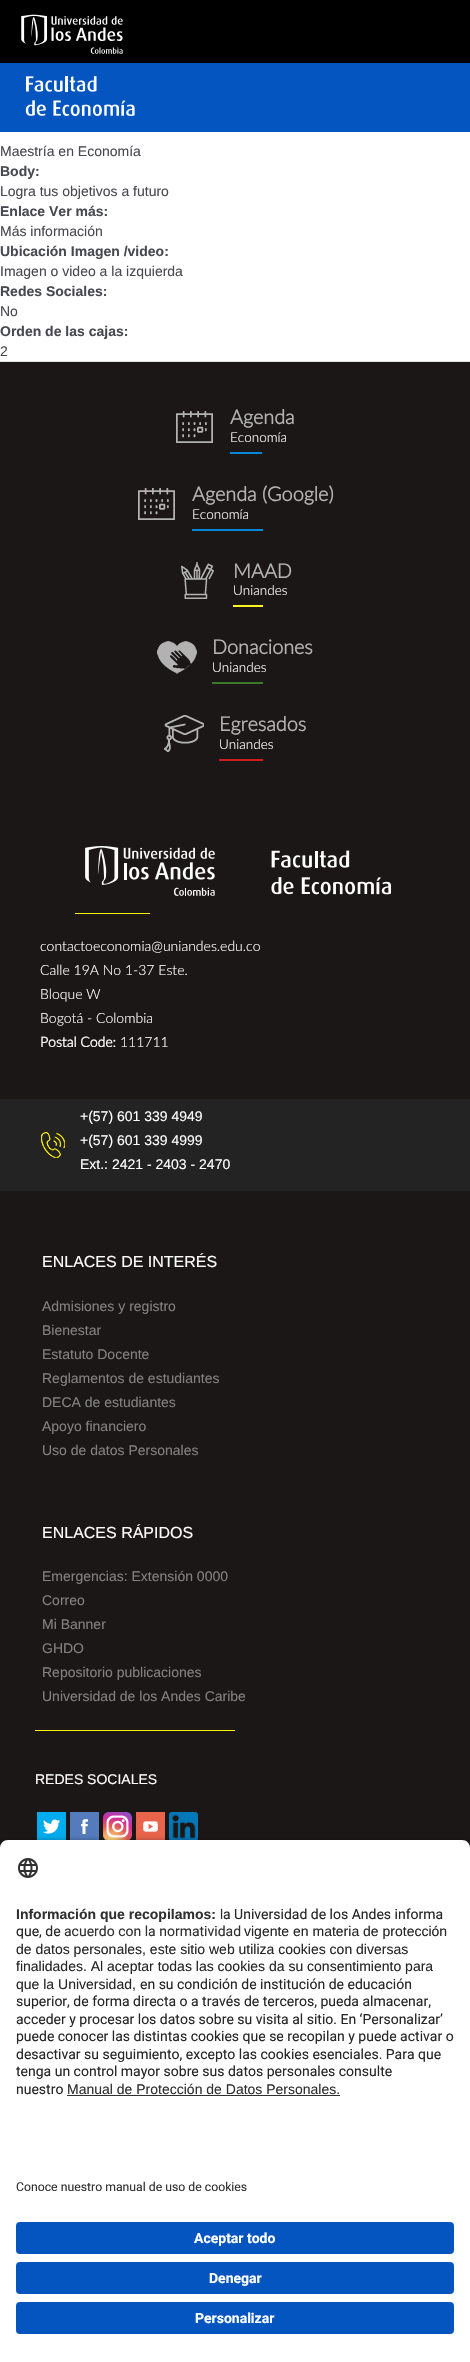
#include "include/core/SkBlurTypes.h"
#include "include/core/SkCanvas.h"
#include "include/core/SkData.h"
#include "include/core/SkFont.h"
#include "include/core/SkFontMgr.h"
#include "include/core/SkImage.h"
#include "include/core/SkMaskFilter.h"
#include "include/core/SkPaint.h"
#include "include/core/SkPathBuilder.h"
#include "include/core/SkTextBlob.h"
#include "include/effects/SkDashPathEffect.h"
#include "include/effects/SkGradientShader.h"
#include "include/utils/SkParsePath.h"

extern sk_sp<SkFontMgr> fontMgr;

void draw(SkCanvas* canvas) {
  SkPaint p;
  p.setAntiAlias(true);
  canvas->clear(SK_ColorWHITE);
  p.setColor(SkColorSetRGB(4, 85, 191));
  canvas->drawRect(SkRect::MakeLTRB(0, 63, 470, 132), p);
  p.setColor(SK_ColorBLACK);
  canvas->drawRect(SkRect::MakeLTRB(0, 0, 470, 63), p);
  canvas->drawImageRect(SkImages::DeferredFromEncodedData(SkData::MakeFromFileName("images/1.png")), SkRect::MakeLTRB(21, 14, 123, 54), SkSamplingOptions());
  canvas->drawImageRect(SkImages::DeferredFromEncodedData(SkData::MakeFromFileName("images/2.png")), SkRect::MakeLTRB(25, 76, 135, 116), SkSamplingOptions());
  p.setColor(SkColorSetRGB(229, 229, 229));
  canvas->drawRect(SkRect::MakeLTRB(0, 361, 470, 362), p);
  p.setColor(SkColorSetRGB(28, 23, 23));
  canvas->drawRect(SkRect::MakeLTRB(0, 362, 470, 1848), p);
  canvas->drawImageRect(SkImages::DeferredFromEncodedData(SkData::MakeFromFileName("images/3.png")), SkRect::MakeLTRB(176, 411, 213, 443), SkSamplingOptions());
  p.setColor(SkColorSetRGB(4, 135, 217));
  canvas->drawRect(SkRect::MakeLTRB(230, 452, 262, 454), p);
  canvas->drawImageRect(SkImages::DeferredFromEncodedData(SkData::MakeFromFileName("images/3.png")), SkRect::MakeLTRB(138, 488, 175, 520), SkSamplingOptions());
  canvas->drawRect(SkRect::MakeLTRB(192, 529, 263, 531), p);
  canvas->drawImageRect(SkImages::DeferredFromEncodedData(SkData::MakeFromFileName("images/4.png")), SkRect::MakeLTRB(181, 562, 214, 599), SkSamplingOptions());
  p.setColor(SkColorSetRGB(255, 244, 30));
  canvas->drawRect(SkRect::MakeLTRB(233, 605, 263, 607), p);
  canvas->drawImageRect(SkImages::DeferredFromEncodedData(SkData::MakeFromFileName("images/5.png")), SkRect::MakeLTRB(157, 641, 197, 674), SkSamplingOptions());
  p.setColor(SkColorSetRGB(58, 122, 38));
  canvas->drawRect(SkRect::MakeLTRB(212, 682, 263, 684), p);
  canvas->drawImageRect(SkImages::DeferredFromEncodedData(SkData::MakeFromFileName("images/6.png")), SkRect::MakeLTRB(164, 715, 204, 752), SkSamplingOptions());
  p.setColor(SkColorSetRGB(207, 27, 27));
  canvas->drawRect(SkRect::MakeLTRB(219, 759, 263, 761), p);
  canvas->drawImageRect(SkImages::DeferredFromEncodedData(SkData::MakeFromFileName("images/7.png")), SkRect::MakeLTRB(85, 846, 215, 896), SkSamplingOptions());
  p.setColor(SkColorSetRGB(255, 239, 0));
  canvas->drawRect(SkRect::MakeLTRB(75, 913, 150, 914), p);
  canvas->drawImageRect(SkImages::DeferredFromEncodedData(SkData::MakeFromFileName("images/8.png")), SkRect::MakeLTRB(271, 850, 391, 895), SkSamplingOptions());
  p.setColor(SkColorSetRGB(35, 35, 35));
  canvas->drawRect(SkRect::MakeLTRB(0, 1099, 470, 1191), p);
  canvas->drawImageRect(SkImages::DeferredFromEncodedData(SkData::MakeFromFileName("images/9.png")), SkRect::MakeLTRB(41, 1132, 65, 1158), SkSamplingOptions());
  p.setColor(SkColorSetRGB(255, 239, 0));
  canvas->drawRect(SkRect::MakeLTRB(35, 1730, 235, 1731), p);
  canvas->drawImageRect(SkImages::DeferredFromEncodedData(SkData::MakeFromFileName("images/10.png")), SkRect::MakeLTRB(37, 1812, 66, 1840), SkSamplingOptions());
  canvas->drawImageRect(SkImages::DeferredFromEncodedData(SkData::MakeFromFileName("images/11.png")), SkRect::MakeLTRB(70, 1812, 99, 1840), SkSamplingOptions());
  canvas->drawImageRect(SkImages::DeferredFromEncodedData(SkData::MakeFromFileName("images/12.png")), SkRect::MakeLTRB(103, 1812, 132, 1840), SkSamplingOptions());
  canvas->drawImageRect(SkImages::DeferredFromEncodedData(SkData::MakeFromFileName("images/13.png")), SkRect::MakeLTRB(136, 1812, 165, 1840), SkSamplingOptions());
  canvas->drawImageRect(SkImages::DeferredFromEncodedData(SkData::MakeFromFileName("images/14.png")), SkRect::MakeLTRB(169, 1812, 198, 1840), SkSamplingOptions());
  canvas->save();
  canvas->clipPath(SkPathBuilder(SkPathFillType::kEvenOdd).moveTo(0, 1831).lineTo(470, 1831).lineTo(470, 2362).lineTo(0, 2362).close().moveTo(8, 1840).lineTo(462, 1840).cubicTo(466.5f, 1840, 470, 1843.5f, 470, 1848).lineTo(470, 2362).lineTo(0, 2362).lineTo(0, 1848).cubicTo(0, 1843.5f, 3.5f, 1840, 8, 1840).close().detach(), true);
  p.setColor(SkColorSetARGB(204, 0, 0, 0));
  p.setMaskFilter(SkMaskFilter::MakeBlur(kNormal_SkBlurStyle, 3.5f));
  canvas->drawRoundRect(SkRect::MakeLTRB(0, 1843, 470, 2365), 8, 8, p);
  p.setMaskFilter(nullptr);
  canvas->restore();
  p.setColor(SK_ColorWHITE);
  canvas->drawPath(SkPathBuilder().moveTo(8, 1840).lineTo(462, 1840).cubicTo(466.5f, 1840, 470, 1843.5f, 470, 1848).lineTo(470, 2164).lineTo(0, 2164).lineTo(0, 1848).cubicTo(0, 1843.5f, 3.5f, 1840, 8, 1840).close().detach(), p);
  canvas->drawImageRect(SkImages::DeferredFromEncodedData(SkData::MakeFromFileName("images/15.png")), SkRect::MakeLTRB(18, 1858, 38, 1878), SkSamplingOptions());
  p.setColor(SkColorSetRGB(48, 48, 48));
  canvas->drawRect(SkRect::MakeLTRB(67, 2095, 340, 2096), p);
  p.setColor(SkColorSetRGB(4, 85, 191));
  canvas->drawRoundRect(SkRect::MakeLTRB(16, 2222, 454, 2254), 4, 4, p);
  canvas->drawRoundRect(SkRect::MakeLTRB(16, 2262, 454, 2294), 4, 4, p);
  canvas->drawRoundRect(SkRect::MakeLTRB(16, 2302, 454, 2334), 4, 4, p);
  SkFont font1(fontMgr->matchFamilyStyle("Liberation Sans", SkFontStyle::Normal()), 14);
  font1.setSubpixel(true);
  p.setColor(SkColorSetRGB(72, 72, 81));
  canvas->drawString("Maestría en Economía", 0, 156, font1, p);
  SkFont font2(fontMgr->matchFamilyStyle("Liberation Sans", SkFontStyle::Bold()), 14);
  font2.setSubpixel(true);
  canvas->drawString("Body:", 0, 176, font2, p);
  canvas->drawString("Logra tus objetivos a futuro", 0, 196, font1, p);
  canvas->drawString("Enlace Ver más:", 0, 216, font2, p);
  canvas->drawString("Más información", 0, 236, font1, p);
  canvas->drawString("Ubicación Imagen /video:", 0, 256, font2, p);
  canvas->drawString("Imagen o video a la izquierda", 0, 276, font1, p);
  canvas->drawString("Redes Sociales:", 0, 296, font2, p);
  canvas->drawString("No", 0, 316, font1, p);
  canvas->drawString("Orden de las cajas:", 0, 336, font2, p);
  canvas->drawString("2", 0, 356, font1, p);
  SkFont font3(fontMgr->matchFamilyStyle("Lato", SkFontStyle::Bold()), 19.75f);
  font3.setSubpixel(true);
  p.setColor(SkColorSetRGB(178, 178, 178));
  canvas->drawString("Agenda", 230, 424, font3, p);
  SkFont font4(fontMgr->matchFamilyStyle("Lato", SkFontStyle(300, SkFontStyle::kNormal_Width, SkFontStyle::kUpright_Slant)), 13.5f);
  font4.setSubpixel(true);
  p.setColor(SK_ColorWHITE);
  canvas->drawString("Economía", 230, 442, font4, p);
  p.setColor(SkColorSetRGB(178, 178, 178));
  canvas->drawString("Agenda (Google)", 192, 501, font3, p);
  p.setColor(SK_ColorWHITE);
  canvas->drawString("Economía", 192, 519, font4, p);
  p.setColor(SkColorSetRGB(178, 178, 178));
  canvas->drawString("MAAD", 233, 578, font3, p);
  p.setColor(SK_ColorWHITE);
  canvas->drawString("Uniandes", 233, 595, font4, p);
  p.setColor(SkColorSetRGB(178, 178, 178));
  canvas->drawString("Donaciones", 212, 654, font3, p);
  p.setColor(SK_ColorWHITE);
  canvas->drawString("Uniandes", 212, 672, font4, p);
  p.setColor(SkColorSetRGB(178, 178, 178));
  canvas->drawString("Egresados", 219, 731, font3, p);
  p.setColor(SK_ColorWHITE);
  canvas->drawString("Uniandes", 219, 749, font4, p);
  SkFont font5(fontMgr->matchFamilyStyle("Lato", SkFontStyle(300, SkFontStyle::kNormal_Width, SkFontStyle::kUpright_Slant)), 14);
  font5.setSubpixel(true);
  canvas->drawString("contactoeconomia@uniandes.edu.co", 40, 951, font5, p);
  canvas->drawString("Calle 19A No 1-37 Este.", 40, 975, font5, p);
  canvas->drawString("Bloque W", 40, 999, font5, p);
  canvas->drawString("Bogotá - Colombia", 40, 1023, font5, p);
  SkFont font6(fontMgr->matchFamilyStyle("Lato", SkFontStyle::Bold()), 14);
  font6.setSubpixel(true);
  canvas->drawString("Postal Code:", 40, 1047, font6, p);
  canvas->drawString("111711", 120, 1047, font5, p);
  canvas->drawString("+(57) 601 339 4949", 80, 1121, font1, p);
  canvas->drawString("+(57) 601 339 4999", 80, 1145, font1, p);
  canvas->drawString("Ext.: 2421 - 2403 - 2470", 80, 1169, font1, p);
  SkFont font7(fontMgr->matchFamilyStyle("Liberation Sans", SkFontStyle::Normal()), 16);
  font7.setSubpixel(true);
  canvas->drawString("ENLACES DE INTERÉS", 42, 1267, font7, p);
  p.setColor(SkColorSetRGB(129, 129, 129));
  canvas->drawString("Admisiones y registro", 42, 1311, font1, p);
  canvas->drawString("Bienestar", 42, 1335, font1, p);
  canvas->drawString("Estatuto Docente", 42, 1359, font1, p);
  canvas->drawString("Reglamentos de estudiantes", 42, 1383, font1, p);
  canvas->drawString("DECA de estudiantes", 42, 1407, font1, p);
  canvas->drawString("Apoyo financiero", 42, 1431, font1, p);
  canvas->drawString("Uso de datos Personales", 42, 1455, font1, p);
  p.setColor(SK_ColorWHITE);
  canvas->drawString("ENLACES RÁPIDOS", 42, 1538, font7, p);
  p.setColor(SkColorSetRGB(129, 129, 129));
  canvas->drawString("Emergencias: Extensión 0000", 42, 1581, font1, p);
  canvas->drawString("Correo", 42, 1605, font1, p);
  canvas->drawString("Mi Banner", 42, 1629, font1, p);
  canvas->drawString("GHDO", 42, 1653, font1, p);
  canvas->drawString("Repositorio publicaciones", 42, 1677, font1, p);
  canvas->drawString("Universidad de los Andes Caribe", 42, 1701, font1, p);
  p.setColor(SK_ColorWHITE);
  canvas->drawString("REDES SOCIALES", 35, 1784, font1, p);
  p.setColor(SkColorSetRGB(48, 48, 48));
  canvas->drawString("Información que recopilamos:", 16, 1919, font2, p);
  canvas->drawString("l", 220, 1919, font1, p);
  SkFont font8(fontMgr->matchFamilyStyle("Roboto", SkFontStyle::Normal()), 14);
  font8.setSubpixel(true);
  p.setColor(SkColorSetRGB(38, 38, 38));
  canvas->drawString("a Universidad de los Andes informa", 223, 1919, font8, p);
  canvas->drawString("que, de", 16, 1936, font8, p);
  p.setColor(SkColorSetRGB(48, 48, 48));
  canvas->drawString("acuerdo con la normatividad", 64, 1936, font8, p);
  p.setColor(SkColorSetRGB(38, 38, 38));
  canvas->drawString("vigente en materia de protección", 244, 1936, font1, p);
  canvas->drawString("de datos personales, este sitio web utiliza cookies con diversas", 16, 1954, font1, p);
  canvas->drawString("finalidades. Al aceptar todas las cookies da su consentimiento para", 16, 1971, font1, p);
  canvas->drawString("que la Universidad,", 16, 1989, font1, p);
  canvas->drawString("en su condición de institución de educación", 140, 1989, font8, p);
  canvas->drawString("superior, de forma directa o a través de terceros, pueda almacenar,", 16, 2006, font8, p);
  canvas->drawString("acceder y procesar los datos sobre su visita al sitio. En ‘Personalizar’", 16, 2024, font8, p);
  canvas->drawString("puede conocer las distintas cookies que se recopilan y puede activar o", 16, 2041, font8, p);
  canvas->drawString("desactivar su seguimiento, excepto las cookies esenciales. Para que", 16, 2059, font8, p);
  canvas->drawString("tenga un control mayor sobre sus datos personales consulte", 16, 2076, font8, p);
  canvas->drawString("nuestro", 16, 2094, font8, p);
  p.setColor(SkColorSetRGB(48, 48, 48));
  canvas->drawString("Manual de Protección de Datos Personales.", 67, 2094, font1, p);
  SkFont font9(fontMgr->matchFamilyStyle("Roboto", SkFontStyle::Normal()), 12.25f);
  font9.setSubpixel(true);
  canvas->drawString("Conoce nuestro manual de uso de cookies", 16, 2191, font9, p);
  SkFont font10(fontMgr->matchFamilyStyle("Roboto", SkFontStyle::Bold()), 14);
  font10.setSubpixel(true);
  p.setColor(SK_ColorWHITE);
  canvas->drawString("Aceptar todo", 194, 2243, font10, p);
  canvas->drawString("Denegar", 209, 2283, font10, p);
  canvas->drawString("Personalizar", 195, 2323, font10, p);
}
